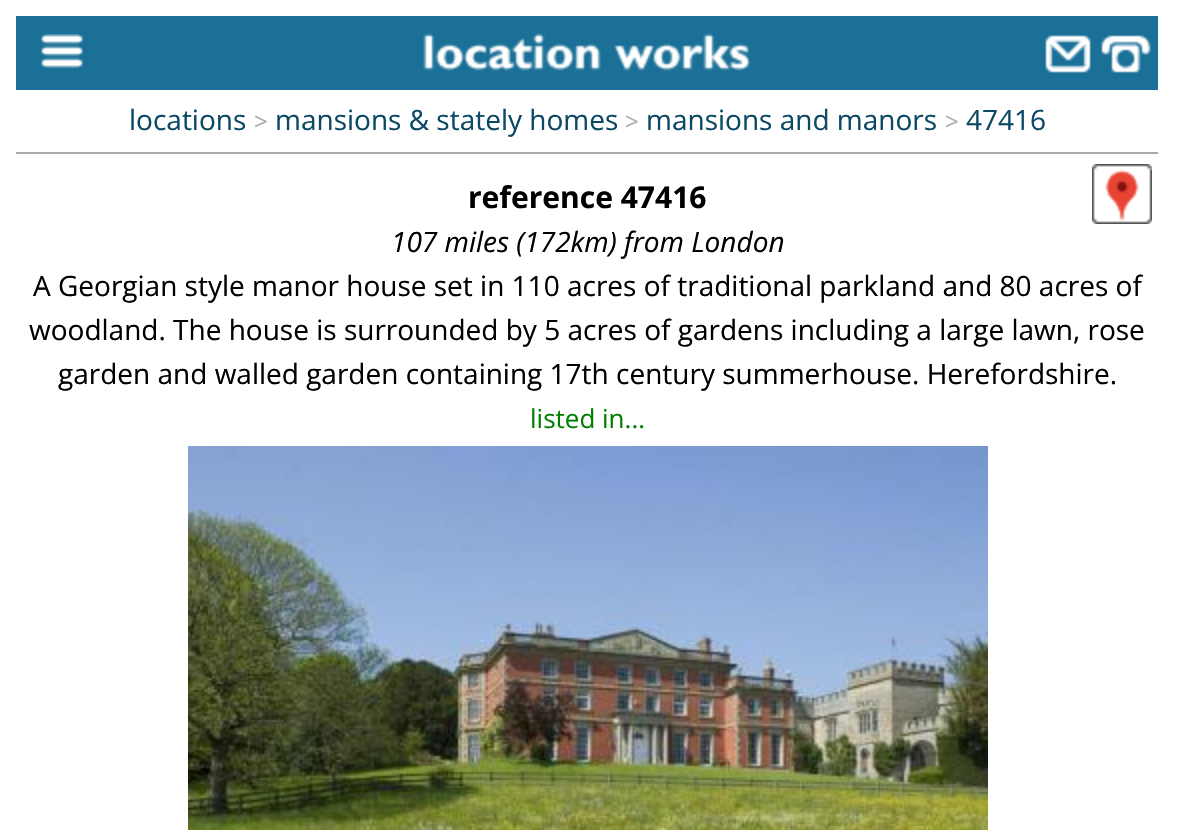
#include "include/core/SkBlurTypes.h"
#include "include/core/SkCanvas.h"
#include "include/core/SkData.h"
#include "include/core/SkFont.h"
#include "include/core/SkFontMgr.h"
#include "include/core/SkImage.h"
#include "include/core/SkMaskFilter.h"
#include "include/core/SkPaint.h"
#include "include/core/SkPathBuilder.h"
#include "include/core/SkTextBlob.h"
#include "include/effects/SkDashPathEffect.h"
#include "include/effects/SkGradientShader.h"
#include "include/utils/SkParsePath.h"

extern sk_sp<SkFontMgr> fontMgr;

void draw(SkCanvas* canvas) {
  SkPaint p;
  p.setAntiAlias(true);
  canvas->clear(SK_ColorWHITE);
  p.setColor(SkColorSetRGB(27, 112, 151));
  canvas->drawRect(SkRect::MakeLTRB(16, 16, 1158, 90), p);
  canvas->drawImageRect(SkImages::DeferredFromEncodedData(SkData::MakeFromFileName("images/1.png")), SkRect::MakeLTRB(40, 34, 84, 68), SkSamplingOptions());
  canvas->drawImageRect(SkImages::DeferredFromEncodedData(SkData::MakeFromFileName("images/2.png")), SkRect::MakeLTRB(423, 33, 751, 71), SkSamplingOptions());
  canvas->drawImageRect(SkImages::DeferredFromEncodedData(SkData::MakeFromFileName("images/3.png")), SkRect::MakeLTRB(1045, 35, 1091, 73), SkSamplingOptions());
  canvas->drawImageRect(SkImages::DeferredFromEncodedData(SkData::MakeFromFileName("images/4.png")), SkRect::MakeLTRB(1101, 35, 1151, 73), SkSamplingOptions());
  p.setColor(SkColorSetRGB(170, 170, 170));
  canvas->drawRect(SkRect::MakeLTRB(16, 152, 1158, 154), p);
  canvas->drawImageRect(SkImages::DeferredFromEncodedData(SkData::MakeFromFileName("images/5.png")), SkRect::MakeLTRB(1092, 164, 1152, 224), SkSamplingOptions());
  canvas->drawImageRect(SkImages::DeferredFromEncodedData(SkData::MakeFromFileName("images/6.png")), SkRect::MakeLTRB(188, 446, 988, 830), SkSamplingOptions());
  SkFont font1(fontMgr->matchFamilyStyle("Open Sans", SkFontStyle::Normal()), 28);
  font1.setSubpixel(true);
  p.setColor(SkColorSetRGB(12, 73, 100));
  canvas->drawString("locations", 129, 130, font1, p);
  SkFont font2(fontMgr->matchFamilyStyle("Open Sans", SkFontStyle::Normal()), 24);
  font2.setSubpixel(true);
  p.setColor(SkColorSetRGB(170, 170, 170));
  canvas->drawString(">", 254, 130, font2, p);
  p.setColor(SkColorSetRGB(12, 73, 100));
  canvas->drawString("mansions & stately homes", 275, 130, font1, p);
  p.setColor(SkColorSetRGB(170, 170, 170));
  canvas->drawString(">", 625, 130, font2, p);
  p.setColor(SkColorSetRGB(12, 73, 100));
  canvas->drawString("mansions and manors", 646, 130, font1, p);
  p.setColor(SkColorSetRGB(170, 170, 170));
  canvas->drawString(">", 945, 130, font2, p);
  p.setColor(SkColorSetRGB(12, 73, 100));
  canvas->drawString("47416", 966, 130, font1, p);
  SkFont font3(fontMgr->matchFamilyStyle("Open Sans", SkFontStyle::Bold()), 30);
  font3.setSubpixel(true);
  p.setColor(SK_ColorBLACK);
  canvas->drawString("reference 47416", 468, 208, font3, p);
  SkFont font4(fontMgr->matchFamilyStyle("Open Sans", SkFontStyle::Italic()), 28);
  font4.setSubpixel(true);
  canvas->drawString("107 miles (172km) from London", 391, 252, font4, p);
  canvas->drawString("A Georgian style manor house set in 110 acres of traditional parkland and 80 acres of", 33, 296, font1, p);
  canvas->drawString("woodland. The house is surrounded by 5 acres of gardens including a large lawn, rose", 29, 340, font1, p);
  canvas->drawString("garden and walled garden containing 17th century summerhouse. Herefordshire.", 58, 384, font1, p);
  SkFont font5(fontMgr->matchFamilyStyle("Open Sans", SkFontStyle::Normal()), 26);
  font5.setSubpixel(true);
  p.setColor(SkColorSetRGB(0, 128, 0));
  canvas->drawString("listed in...", 530, 428, font5, p);
}
